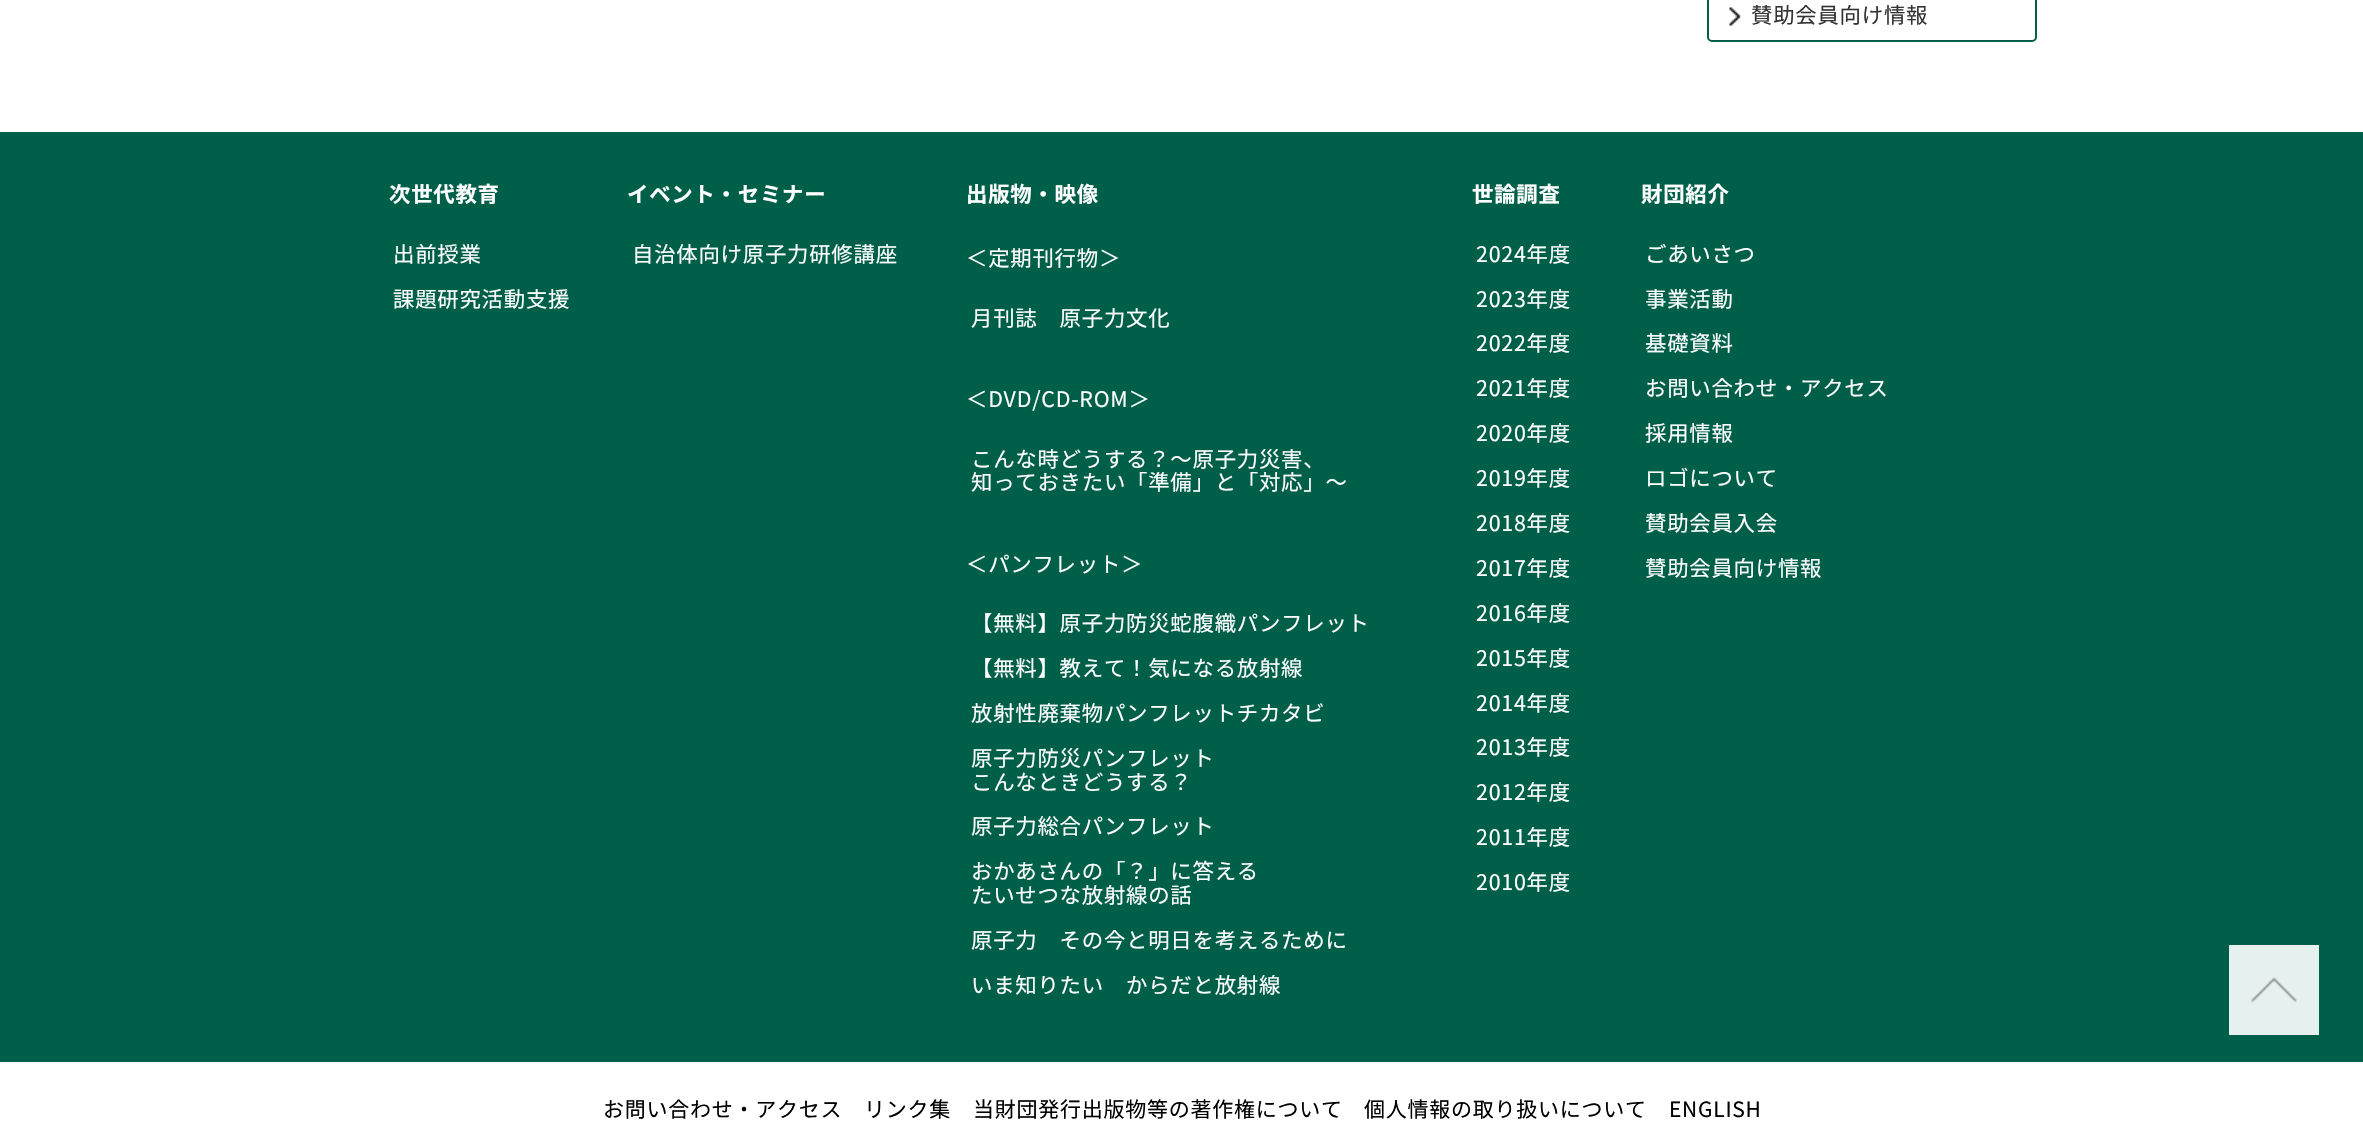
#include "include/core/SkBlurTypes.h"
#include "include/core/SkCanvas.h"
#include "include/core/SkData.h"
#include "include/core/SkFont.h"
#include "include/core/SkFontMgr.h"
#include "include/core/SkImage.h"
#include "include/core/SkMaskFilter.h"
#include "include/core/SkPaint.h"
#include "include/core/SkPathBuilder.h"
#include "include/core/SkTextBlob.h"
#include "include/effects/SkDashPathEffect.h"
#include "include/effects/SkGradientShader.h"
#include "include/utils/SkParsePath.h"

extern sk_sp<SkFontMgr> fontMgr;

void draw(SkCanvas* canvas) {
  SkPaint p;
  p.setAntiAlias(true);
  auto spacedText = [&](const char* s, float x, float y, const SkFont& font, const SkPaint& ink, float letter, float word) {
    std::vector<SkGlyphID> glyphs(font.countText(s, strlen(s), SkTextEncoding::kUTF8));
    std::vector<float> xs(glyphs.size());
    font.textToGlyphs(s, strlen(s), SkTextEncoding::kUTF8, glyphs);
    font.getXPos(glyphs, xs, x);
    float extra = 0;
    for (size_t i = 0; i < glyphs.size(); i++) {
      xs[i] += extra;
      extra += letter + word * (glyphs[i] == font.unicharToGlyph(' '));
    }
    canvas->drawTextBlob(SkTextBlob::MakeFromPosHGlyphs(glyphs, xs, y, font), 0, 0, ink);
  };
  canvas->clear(SK_ColorWHITE);
  p.setStyle(SkPaint::kStroke_Style);
  p.setStrokeWidth(2);
  p.setColor(SkColorSetRGB(0, 95, 73));
  canvas->drawRoundRect(SkRect::MakeLTRB(1708, -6, 2036, 41), 4, 4, p);
  canvas->drawImageRect(SkImages::DeferredFromEncodedData(SkData::MakeFromFileName("images/1.png")), SkRect::MakeLTRB(1729, 7, 1741, 26), SkSamplingOptions());
  p.setStyle(SkPaint::kFill_Style);
  canvas->drawRect(SkRect::MakeLTRB(0, 132, 2363, 1062), p);
  canvas->drawImageRect(SkImages::DeferredFromEncodedData(SkData::MakeFromFileName("images/2.png")), SkRect::MakeLTRB(2229, 945, 2319, 1035), SkSamplingOptions());
  SkFont font1(fontMgr->matchFamilyStyle("Noto Sans JP", SkFontStyle::Normal()), 21.4f);
  font1.setSubpixel(true);
  p.setColor(SkColorSetRGB(51, 51, 51));
  spacedText("賛助会員向け情報", 1751, 23, font1, p, 0.75f, 0);
  SkFont font2(fontMgr->matchFamilyStyle("Noto Sans JP", SkFontStyle::Bold()), 21.4f);
  font2.setSubpixel(true);
  p.setColor(SK_ColorWHITE);
  spacedText("次世代教育", 389, 202, font2, p, 0.75f, 0);
  spacedText("出前授業", 393, 262, font1, p, 0.75f, 0);
  spacedText("課題研究活動支援", 393, 307, font1, p, 0.75f, 0);
  spacedText("イベント・セミナー", 627, 202, font2, p, 0.75f, 0);
  spacedText("自治体向け原子力研修講座", 632, 262, font1, p, 0.75f, 0);
  spacedText("出版物・映像", 966, 202, font2, p, 0.75f, 0);
  spacedText("＜定期刊行物＞", 966, 266, font1, p, 0.75f, 0);
  spacedText("月刊誌　原子力文化", 971, 326, font1, p, 0.75f, 0);
  spacedText("＜DVD/CD-ROM＞", 966, 407, font1, p, 0.75f, 0);
  spacedText("こんな時どうする？～原子力災害、", 971, 467, font1, p, 0.75f, 0);
  spacedText("知っておきたい「準備」と「対応」～", 971, 490, font1, p, 0.75f, 0);
  spacedText("＜パンフレット＞", 966, 572, font1, p, 0.75f, 0);
  spacedText("【無料】原子力防災蛇腹織パンフレット", 971, 631, font1, p, 0.75f, 0);
  spacedText("【無料】教えて！気になる放射線", 971, 676, font1, p, 0.75f, 0);
  spacedText("放射性廃棄物パンフレットチカタビ", 971, 721, font1, p, 0.75f, 0);
  spacedText("原子力防災パンフレット", 971, 766, font1, p, 0.75f, 0);
  spacedText("こんなときどうする？", 971, 790, font1, p, 0.75f, 0);
  spacedText("原子力総合パンフレット", 971, 834, font1, p, 0.75f, 0);
  spacedText("おかあさんの「？」に答える", 971, 879, font1, p, 0.75f, 0);
  spacedText("たいせつな放射線の話", 971, 903, font1, p, 0.75f, 0);
  spacedText("原子力　その今と明日を考えるために", 971, 948, font1, p, 0.75f, 0);
  spacedText("いま知りたい　からだと放射線", 971, 993, font1, p, 0.75f, 0);
  spacedText("世論調査", 1472, 202, font2, p, 0.75f, 0);
  spacedText("2024年度", 1476, 262, font1, p, 0.75f, 0);
  spacedText("2023年度", 1476, 307, font1, p, 0.75f, 0);
  spacedText("2022年度", 1476, 351, font1, p, 0.75f, 0);
  spacedText("2021年度", 1476, 396, font1, p, 0.75f, 0);
  spacedText("2020年度", 1476, 441, font1, p, 0.75f, 0);
  spacedText("2019年度", 1476, 486, font1, p, 0.75f, 0);
  spacedText("2018年度", 1476, 531, font1, p, 0.75f, 0);
  spacedText("2017年度", 1476, 576, font1, p, 0.75f, 0);
  spacedText("2016年度", 1476, 621, font1, p, 0.75f, 0);
  spacedText("2015年度", 1476, 666, font1, p, 0.75f, 0);
  spacedText("2014年度", 1476, 711, font1, p, 0.75f, 0);
  spacedText("2013年度", 1476, 755, font1, p, 0.75f, 0);
  spacedText("2012年度", 1476, 800, font1, p, 0.75f, 0);
  spacedText("2011年度", 1476, 845, font1, p, 0.75f, 0);
  spacedText("2010年度", 1476, 890, font1, p, 0.75f, 0);
  spacedText("財団紹介", 1641, 202, font2, p, 0.75f, 0);
  spacedText("ごあいさつ", 1645, 262, font1, p, 0.75f, 0);
  spacedText("事業活動", 1645, 307, font1, p, 0.75f, 0);
  spacedText("基礎資料", 1645, 351, font1, p, 0.75f, 0);
  spacedText("お問い合わせ・アクセス", 1645, 396, font1, p, 0.75f, 0);
  spacedText("採用情報", 1645, 441, font1, p, 0.75f, 0);
  spacedText("ロゴについて", 1645, 486, font1, p, 0.75f, 0);
  spacedText("賛助会員入会", 1645, 531, font1, p, 0.75f, 0);
  spacedText("賛助会員向け情報", 1645, 576, font1, p, 0.75f, 0);
  SkFont font3(fontMgr->matchFamilyStyle("Noto Sans JP", SkFontStyle::Normal()), 21);
  font3.setSubpixel(true);
  p.setColor(SK_ColorBLACK);
  spacedText("お問い合わせ・アクセス", 603, 1117, font3, p, 0.75f, 0);
  spacedText("リンク集", 864, 1117, font3, p, 0.75f, 0);
  spacedText("当財団発行出版物等の著作権について", 973, 1117, font3, p, 0.75f, 0);
  spacedText("個人情報の取り扱いについて", 1364, 1117, font3, p, 0.75f, 0);
  spacedText("ENGLISH", 1669, 1117, font3, p, 0.75f, 0);
}
